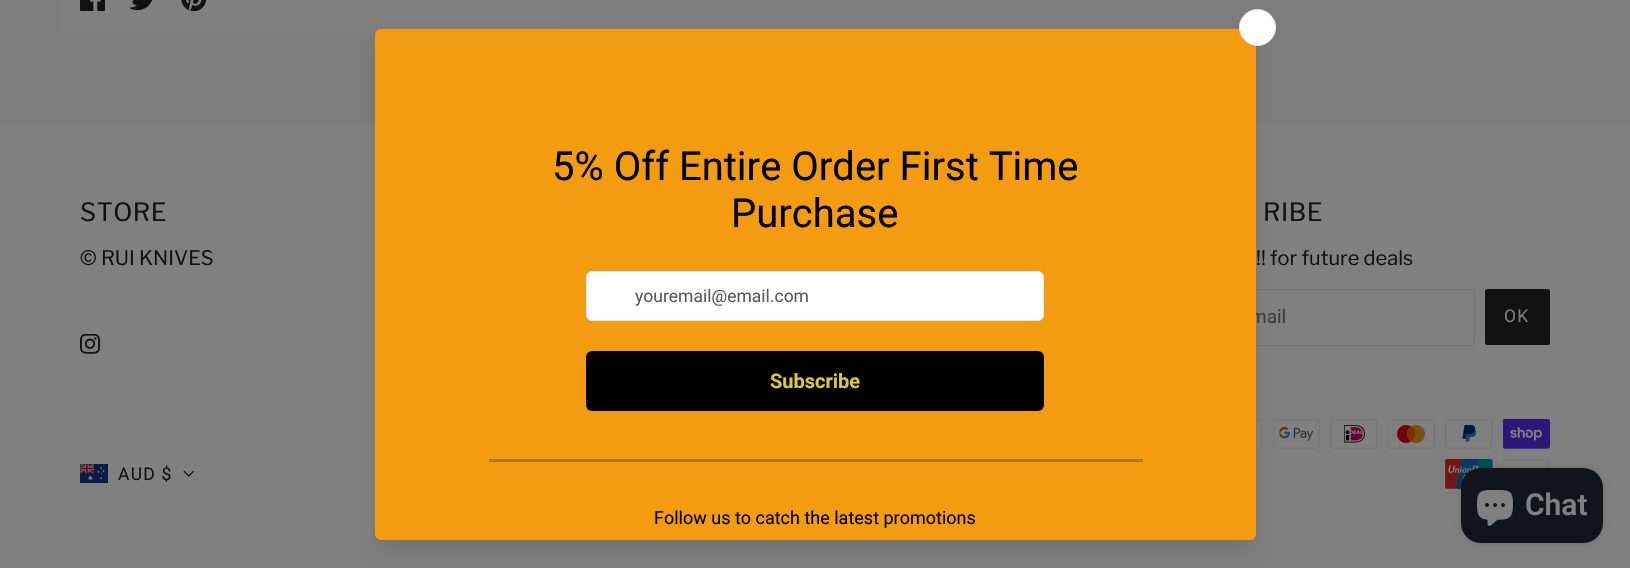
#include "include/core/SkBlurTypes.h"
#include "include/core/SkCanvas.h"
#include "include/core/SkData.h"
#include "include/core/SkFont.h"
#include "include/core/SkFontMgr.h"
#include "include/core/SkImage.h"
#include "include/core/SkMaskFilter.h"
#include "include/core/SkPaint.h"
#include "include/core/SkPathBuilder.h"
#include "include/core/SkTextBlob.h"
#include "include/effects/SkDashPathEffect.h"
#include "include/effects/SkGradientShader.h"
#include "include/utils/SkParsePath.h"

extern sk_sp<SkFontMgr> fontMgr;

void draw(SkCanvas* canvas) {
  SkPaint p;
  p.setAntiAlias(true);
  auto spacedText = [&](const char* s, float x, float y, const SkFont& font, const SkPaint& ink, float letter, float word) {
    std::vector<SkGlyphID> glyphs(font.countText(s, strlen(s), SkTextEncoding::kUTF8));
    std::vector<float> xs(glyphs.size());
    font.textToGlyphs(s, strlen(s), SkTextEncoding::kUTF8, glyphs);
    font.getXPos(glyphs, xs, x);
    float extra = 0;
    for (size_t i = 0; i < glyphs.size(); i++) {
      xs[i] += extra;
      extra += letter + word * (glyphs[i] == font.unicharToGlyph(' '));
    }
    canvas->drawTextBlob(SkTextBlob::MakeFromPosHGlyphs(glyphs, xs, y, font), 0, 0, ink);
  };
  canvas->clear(SkColorSetRGB(128, 128, 128));
  p.setColor(SkColorSetRGB(124, 124, 124));
  canvas->drawRect(SkRect::MakeLTRB(0, 0, 1630, 123), p);
  p.setColor(SkColorSetRGB(128, 128, 128));
  canvas->drawRect(SkRect::MakeLTRB(60, 0, 560, 33), p);
  p.setStyle(SkPaint::kStroke_Style);
  p.setStrokeWidth(1);
  p.setColor(SkColorSetRGB(117, 117, 117));
  canvas->drawRoundRect(SkRect::MakeLTRB(1175.5f, 289.5f, 1474.5f, 345.5f), 2, 2, p);
  canvas->drawImageRect(SkImages::DeferredFromEncodedData(SkData::MakeFromFileName("images/7.png")), SkRect::MakeLTRB(1256, 419, 1263, 449), SkSamplingOptions());
  canvas->drawImageRect(SkImages::DeferredFromEncodedData(SkData::MakeFromFileName("images/8.png")), SkRect::MakeLTRB(1273, 419, 1320, 449), SkSamplingOptions());
  p.setStyle(SkPaint::kFill_Style);
  p.setColor(SkColorSetARGB(26, 0, 0, 0));
  p.setMaskFilter(SkMaskFilter::MakeBlur(kNormal_SkBlurStyle, 9.5f));
  canvas->drawRoundRect(SkRect::MakeLTRB(379, 45, 1253, 549), 2.5f, 2.5f, p);
  p.setMaskFilter(nullptr);
  canvas->save();
  canvas->clipRect(SkRect::MakeLTRB(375, 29, 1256, 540));
  p.setColor(SkColorSetARGB(31, 0, 0, 0));
  p.setMaskFilter(SkMaskFilter::MakeBlur(kNormal_SkBlurStyle, 12.5f));
  canvas->drawRoundRect(SkRect::MakeLTRB(379, 33, 1253, 536), 2.5f, 2.5f, p);
  p.setMaskFilter(nullptr);
  canvas->restore();
  canvas->drawImageRect(SkImages::DeferredFromEncodedData(SkData::MakeFromFileName("images/1.png")), SkRect::MakeLTRB(80, 0, 105, 11), SkSamplingOptions());
  canvas->drawImageRect(SkImages::DeferredFromEncodedData(SkData::MakeFromFileName("images/2.png")), SkRect::MakeLTRB(129, 0, 153, 11), SkSamplingOptions());
  canvas->drawImageRect(SkImages::DeferredFromEncodedData(SkData::MakeFromFileName("images/3.png")), SkRect::MakeLTRB(181, 0, 206, 11), SkSamplingOptions());
  canvas->drawImageRect(SkImages::DeferredFromEncodedData(SkData::MakeFromFileName("images/4.png")), SkRect::MakeLTRB(80, 334, 100, 354), SkSamplingOptions());
  p.setColor(SkColorSetRGB(17, 17, 17));
  canvas->drawRoundRect(SkRect::MakeLTRB(1485, 289, 1550, 345), 2.5f, 2.5f, p);
  canvas->drawImageRect(SkImages::DeferredFromEncodedData(SkData::MakeFromFileName("images/5.png")), SkRect::MakeLTRB(80, 464, 108, 483), SkSamplingOptions());
  canvas->drawImageRect(SkImages::DeferredFromEncodedData(SkData::MakeFromFileName("images/6.png")), SkRect::MakeLTRB(183, 470, 194, 477), SkSamplingOptions());
  canvas->drawImageRect(SkImages::DeferredFromEncodedData(SkData::MakeFromFileName("images/9.png")), SkRect::MakeLTRB(1330, 419, 1378, 449), SkSamplingOptions());
  canvas->drawImageRect(SkImages::DeferredFromEncodedData(SkData::MakeFromFileName("images/10.png")), SkRect::MakeLTRB(1388, 419, 1435, 449), SkSamplingOptions());
  canvas->drawImageRect(SkImages::DeferredFromEncodedData(SkData::MakeFromFileName("images/11.png")), SkRect::MakeLTRB(1445, 419, 1493, 449), SkSamplingOptions());
  canvas->drawImageRect(SkImages::DeferredFromEncodedData(SkData::MakeFromFileName("images/12.png")), SkRect::MakeLTRB(1503, 419, 1550, 449), SkSamplingOptions());
  canvas->drawImageRect(SkImages::DeferredFromEncodedData(SkData::MakeFromFileName("images/13.png")), SkRect::MakeLTRB(1445, 459, 1493, 489), SkSamplingOptions());
  canvas->drawImageRect(SkImages::DeferredFromEncodedData(SkData::MakeFromFileName("images/14.png")), SkRect::MakeLTRB(1503, 459, 1550, 468), SkSamplingOptions());
  p.setColor(SkColorSetARGB(38, 0, 0, 0));
  p.setMaskFilter(SkMaskFilter::MakeBlur(kNormal_SkBlurStyle, 3));
  canvas->drawRoundRect(SkRect::MakeLTRB(1461, 468, 1603, 543), 20, 20, p);
  p.setMaskFilter(nullptr);
  p.setColor(SkColorSetRGB(16, 21, 27));
  canvas->drawRoundRect(SkRect::MakeLTRB(1461, 468, 1603, 543), 20, 20, p);
  canvas->drawImageRect(SkImages::DeferredFromEncodedData(SkData::MakeFromFileName("images/15.png")), SkRect::MakeLTRB(1477, 490, 1513, 526), SkSamplingOptions());
  SkFont font1(fontMgr->matchFamilyStyle("Libre Franklin", SkFontStyle::Normal()), 25);
  font1.setSubpixel(true);
  p.setColor(SkColorSetRGB(17, 17, 17));
  spacedText("STORE", 80, 221, font1, p, 0.5f, 0);
  SkFont font2(fontMgr->matchFamilyStyle("Libre Franklin", SkFontStyle::Normal()), 20);
  font2.setSubpixel(true);
  canvas->drawString("© RUI KNIVES", 80, 265, font2, p);
  spacedText("RIBE", 1263, 221, font1, p, 0.5f, 0);
  canvas->drawString("!! for future deals", 1256, 265, font2, p);
  SkFont font3(fontMgr->matchFamilyStyle("Roboto", SkFontStyle::Normal()), 19);
  font3.setSubpixel(true);
  p.setColor(SkColorSetRGB(59, 59, 59));
  canvas->drawString("mail", 1250, 323, font3, p);
  p.setColor(SkColorSetRGB(243, 156, 18));
  canvas->drawRoundRect(SkRect::MakeLTRB(375, 29, 1256, 540), 6, 6, p);
  p.setColor(SK_ColorWHITE);
  canvas->drawCircle(1257.5f, 27.5f, 18, p);
  p.setStyle(SkPaint::kStroke_Style);
  p.setColor(SkColorSetRGB(226, 232, 240));
  canvas->drawCircle(1257.5f, 27.5f, 18, p);
  p.setStyle(SkPaint::kFill_Style);
  p.setColor(SkColorSetRGB(182, 117, 14));
  canvas->drawRect(SkRect::MakeLTRB(489, 459, 1143, 462), p);
  p.setColor(SK_ColorWHITE);
  canvas->drawRoundRect(SkRect::MakeLTRB(586.5f, 271.5f, 1043.5f, 320.5f), 5.5f, 5.5f, p);
  p.setStyle(SkPaint::kStroke_Style);
  p.setColor(SkColorSetRGB(226, 232, 240));
  canvas->drawRoundRect(SkRect::MakeLTRB(586.5f, 271.5f, 1043.5f, 320.5f), 5.5f, 5.5f, p);
  SkFont font4(fontMgr->matchFamilyStyle("Roboto", SkFontStyle::Normal()), 17.5f);
  font4.setSubpixel(true);
  p.setStyle(SkPaint::kFill_Style);
  p.setColor(SkColorSetRGB(89, 89, 89));
  canvas->drawString("youremail@email.com", 635, 302, font4, p);
  SkFont font5(fontMgr->matchFamilyStyle("Roboto", SkFontStyle::Normal()), 18);
  font5.setSubpixel(true);
  p.setColor(SK_ColorBLACK);
  canvas->drawString("Follow us to catch the latest promotions", 654, 524, font5, p);
  canvas->drawRoundRect(SkRect::MakeLTRB(586, 351, 1044, 411), 6, 6, p);
  SkFont font6(fontMgr->matchFamilyStyle("Roboto", SkFontStyle::Bold()), 20);
  font6.setSubpixel(true);
  p.setColor(SkColorSetRGB(222, 202, 46));
  canvas->drawString("Subscribe", 770, 388, font6, p);
  SkFont font7(fontMgr->matchFamilyStyle("Roboto", SkFontStyle::Normal()), 40);
  font7.setSubpixel(true);
  p.setColor(SK_ColorBLACK);
  canvas->drawString("Purchase", 731, 227, font7, p);
  canvas->drawString("5% Off Entire Order First Time", 552, 180, font7, p);
  p.setColor(SkColorSetRGB(128, 128, 128));
  spacedText("OK", 1504, 322, font4, p, 1.25f, 0);
  p.setColor(SkColorSetRGB(17, 17, 17));
  spacedText("AUD $", 118, 480, font4, p, 1.25f, 0);
  SkFont font8(fontMgr->matchFamilyStyle("Roboto", SkFontStyle(600, SkFontStyle::kNormal_Width, SkFontStyle::kUpright_Slant)), 30);
  font8.setSubpixel(true);
  p.setColor(SkColorSetRGB(128, 128, 128));
  canvas->drawString("Chat", 1525, 515, font8, p);
}
